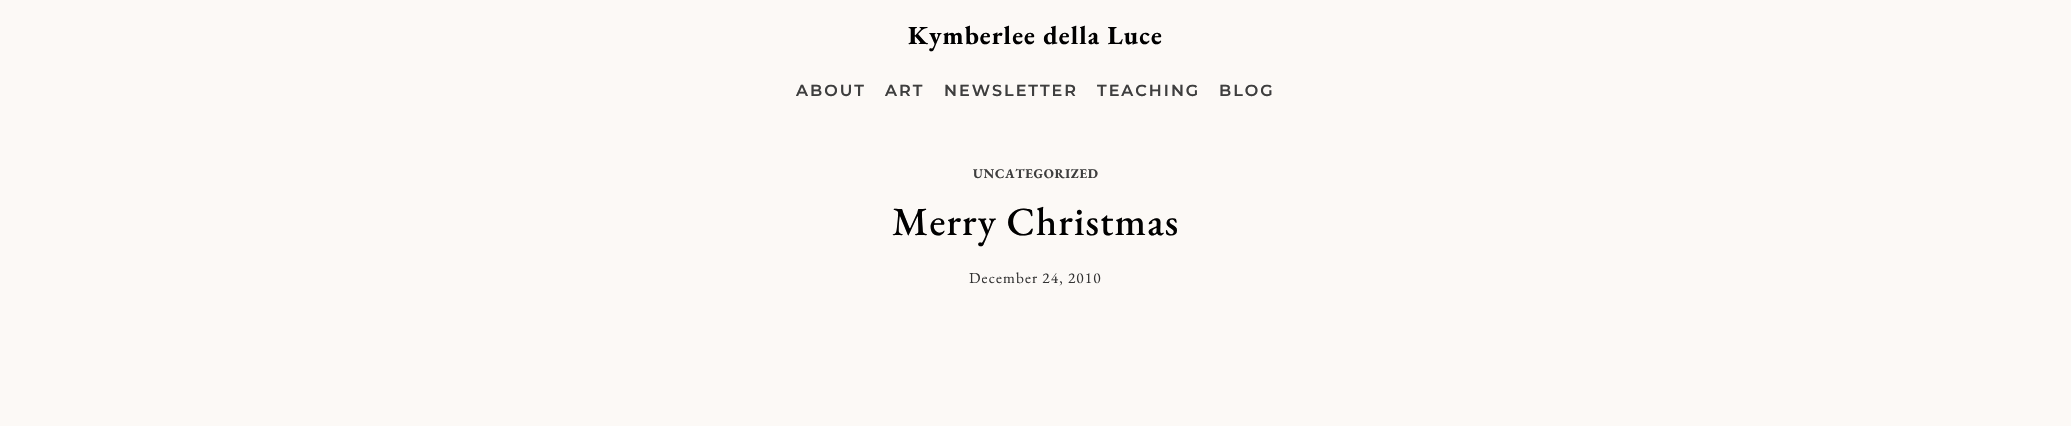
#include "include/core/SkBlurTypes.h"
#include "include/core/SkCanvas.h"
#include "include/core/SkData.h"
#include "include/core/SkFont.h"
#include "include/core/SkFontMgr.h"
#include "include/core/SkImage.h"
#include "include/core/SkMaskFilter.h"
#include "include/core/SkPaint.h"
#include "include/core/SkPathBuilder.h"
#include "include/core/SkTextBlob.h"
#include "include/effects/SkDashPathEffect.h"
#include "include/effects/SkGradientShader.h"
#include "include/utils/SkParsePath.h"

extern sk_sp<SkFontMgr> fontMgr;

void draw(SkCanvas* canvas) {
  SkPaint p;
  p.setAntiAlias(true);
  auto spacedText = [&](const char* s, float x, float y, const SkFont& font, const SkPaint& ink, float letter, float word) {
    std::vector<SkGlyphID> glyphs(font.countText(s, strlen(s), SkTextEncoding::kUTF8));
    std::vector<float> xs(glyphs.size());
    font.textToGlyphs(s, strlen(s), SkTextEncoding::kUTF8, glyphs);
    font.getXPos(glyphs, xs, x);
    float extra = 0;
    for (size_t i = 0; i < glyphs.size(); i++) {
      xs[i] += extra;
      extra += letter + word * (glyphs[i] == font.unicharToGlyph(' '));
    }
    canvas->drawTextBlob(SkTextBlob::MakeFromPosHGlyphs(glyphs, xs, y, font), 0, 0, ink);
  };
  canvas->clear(SkColorSetRGB(252, 249, 246));
  SkFont font1(fontMgr->matchFamilyStyle("EB Garamond", SkFontStyle::Bold()), 26);
  font1.setSubpixel(true);
  p.setColor(SK_ColorBLACK);
  spacedText("Kymberlee della Luce", 908, 44, font1, p, 1.1f, 0);
  SkFont font2(fontMgr->matchFamilyStyle("Montserrat", SkFontStyle(100, SkFontStyle::kNormal_Width, SkFontStyle::kUpright_Slant)), 16);
  font2.setSubpixel(true);
  p.setColor(SkColorSetRGB(62, 62, 62));
  spacedText("ABOUT", 796, 96, font2, p, 2, 0);
  spacedText("ART", 885, 96, font2, p, 2, 0);
  spacedText("NEWSLETTER", 944, 96, font2, p, 2, 0);
  spacedText("TEACHING", 1097, 96, font2, p, 2, 0);
  spacedText("BLOG", 1219, 96, font2, p, 2, 0);
  SkFont font3(fontMgr->matchFamilyStyle("EB Garamond", SkFontStyle::Bold()), 13.25f);
  font3.setSubpixel(true);
  spacedText("UNCATEGORIZED", 973, 178, font3, p, 0.7f, 0);
  SkFont font4(fontMgr->matchFamilyStyle("EB Garamond", SkFontStyle(500, SkFontStyle::kNormal_Width, SkFontStyle::kUpright_Slant)), 40);
  font4.setSubpixel(true);
  p.setColor(SK_ColorBLACK);
  spacedText("Merry Christmas", 892, 235, font4, p, 1.1f, 0);
  SkFont font5(fontMgr->matchFamilyStyle("EB Garamond", SkFontStyle::Normal()), 15.25f);
  font5.setSubpixel(true);
  p.setColor(SkColorSetRGB(51, 51, 51));
  spacedText("December 24, 2010", 969, 283, font5, p, 1.1f, 0);
}
